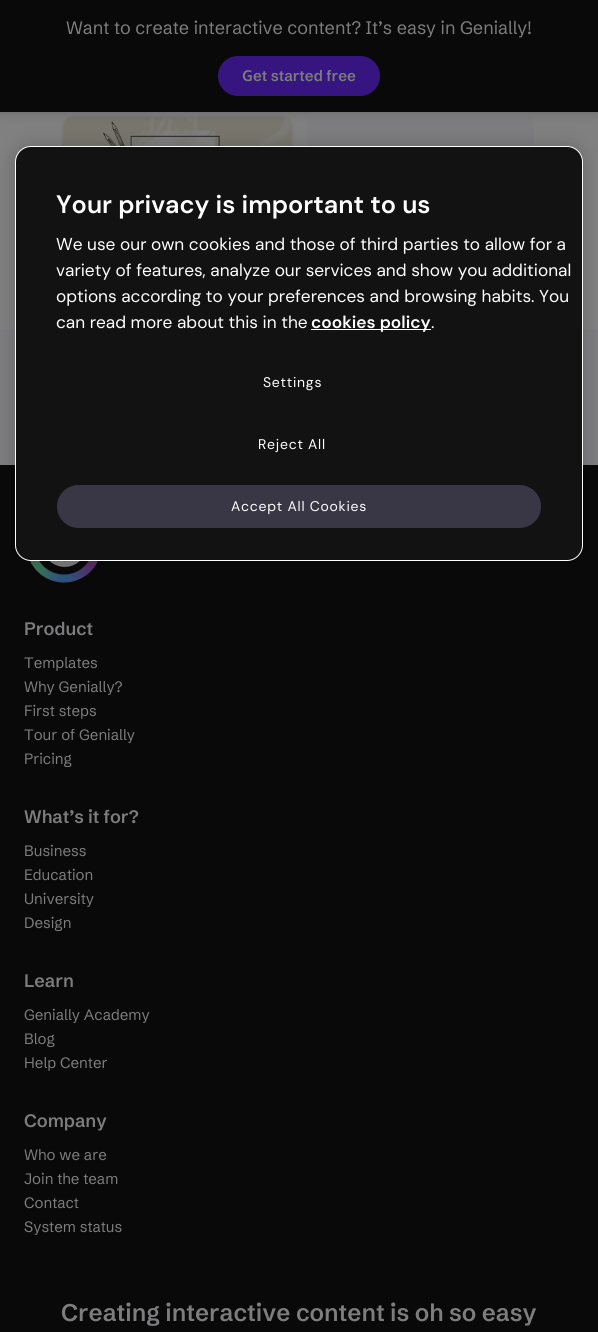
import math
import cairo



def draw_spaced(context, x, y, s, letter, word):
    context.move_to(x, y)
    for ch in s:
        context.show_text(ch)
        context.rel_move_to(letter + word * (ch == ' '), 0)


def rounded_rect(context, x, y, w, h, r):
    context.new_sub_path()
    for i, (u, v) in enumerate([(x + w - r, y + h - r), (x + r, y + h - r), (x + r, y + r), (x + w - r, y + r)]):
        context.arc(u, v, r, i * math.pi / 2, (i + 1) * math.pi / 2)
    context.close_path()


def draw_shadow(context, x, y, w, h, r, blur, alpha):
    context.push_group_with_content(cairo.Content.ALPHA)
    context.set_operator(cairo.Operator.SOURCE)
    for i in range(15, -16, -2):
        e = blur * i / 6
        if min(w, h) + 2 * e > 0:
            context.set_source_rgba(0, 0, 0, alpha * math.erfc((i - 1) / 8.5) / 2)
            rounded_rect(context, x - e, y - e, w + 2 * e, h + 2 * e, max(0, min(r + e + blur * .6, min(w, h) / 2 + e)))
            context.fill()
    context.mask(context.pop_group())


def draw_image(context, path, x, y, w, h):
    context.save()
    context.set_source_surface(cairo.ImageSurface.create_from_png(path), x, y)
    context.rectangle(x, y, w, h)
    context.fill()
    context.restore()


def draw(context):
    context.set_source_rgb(128 / 255, 128 / 255, 128 / 255)
    context.paint()
    context.set_source_rgb(9 / 255, 9 / 255, 9 / 255)
    draw_shadow(context, 64, 118, 227, 128, 8, 2, 0.2)
    draw_image(context, "images/1.png", 64, 117, 227, 29)
    context.set_source_rgb(125 / 255, 124 / 255, 126 / 255)
    rounded_rect(context, 307, 117, 227, 156, 8)
    context.fill()
    context.set_source_rgb(9 / 255, 9 / 255, 9 / 255)
    draw_shadow(context, 0, -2, 598, 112, 0, 6.5, 0.3)
    context.set_source_rgb(9 / 255, 9 / 255, 9 / 255)
    context.rectangle(0, 0, 598, 112)
    context.fill()
    context.set_source_rgb(54 / 255, 21 / 255, 128 / 255)
    rounded_rect(context, 218, 56, 162, 40, 20)
    context.fill()
    context.set_source_rgb(125 / 255, 124 / 255, 126 / 255)
    context.rectangle(0, 329, 598, 136)
    context.fill()
    context.set_source_rgb(9 / 255, 9 / 255, 9 / 255)
    context.rectangle(0, 465, 598, 867)
    context.fill()
    draw_image(context, "images/2.png", 29, 560, 69, 23)
    context.set_source_rgb(0, 0, 0)
    draw_shadow(context, 15, 146, 568, 415, 16, 9, 0.2)
    context.set_source_rgb(18 / 255, 18 / 255, 18 / 255)
    rounded_rect(context, 15.5, 146.5, 567, 414, 15.5)
    context.fill_preserve()
    context.set_source_rgb(1, 1, 1)
    context.set_line_width(1)
    context.stroke()
    context.rectangle(311, 329, 120, 1)
    context.fill()
    context.set_source_rgb(57 / 255, 54 / 255, 69 / 255)
    rounded_rect(context, 56.5, 484.5, 485, 44, 22)
    context.fill_preserve()
    context.set_source_rgb(18 / 255, 18 / 255, 18 / 255)
    context.stroke()
    context.select_font_face("Schibsted Grotesk")
    context.set_font_size(18)
    context.set_source_rgb(125 / 255, 124 / 255, 126 / 255)
    context.move_to(66, 34)
    context.show_text("Want to create interactive content? It’s easy in Genially!")
    context.select_font_face("Noto Sans SemiBold")
    context.set_font_size(15)
    context.move_to(242, 81)
    context.show_text("G")
    context.select_font_face("Schibsted Grotesk SemiBold")
    context.move_to(253, 81)
    context.show_text("et started free")
    context.set_font_size(18)
    context.move_to(24, 635)
    context.show_text("Product")
    context.select_font_face("Schibsted Grotesk")
    context.set_font_size(15)
    context.move_to(24, 668)
    context.show_text("Templates")
    context.move_to(24, 692)
    context.show_text("Why Genially?")
    context.move_to(24, 716)
    context.show_text("First steps")
    context.move_to(24, 740)
    context.show_text("Tour of Genially")
    context.move_to(24, 764)
    context.show_text("Pricing")
    context.select_font_face("Schibsted Grotesk SemiBold")
    context.set_font_size(18)
    context.move_to(24, 823)
    context.show_text("What’s it for?")
    context.select_font_face("Schibsted Grotesk")
    context.set_font_size(15)
    context.move_to(24, 856)
    context.show_text("Business")
    context.move_to(24, 880)
    context.show_text("Education")
    context.move_to(24, 904)
    context.show_text("University")
    context.move_to(24, 928)
    context.show_text("Design")
    context.select_font_face("Schibsted Grotesk SemiBold")
    context.set_font_size(18)
    context.move_to(24, 987)
    context.show_text("Learn")
    context.select_font_face("Schibsted Grotesk")
    context.set_font_size(15)
    context.move_to(24, 1020)
    context.show_text("Genially Academy")
    context.move_to(24, 1044)
    context.show_text("Blog")
    context.move_to(24, 1068)
    context.show_text("Help Center")
    context.select_font_face("Schibsted Grotesk SemiBold")
    context.set_font_size(18)
    context.move_to(24, 1127)
    context.show_text("Company")
    context.select_font_face("Schibsted Grotesk")
    context.set_font_size(15)
    context.move_to(24, 1160)
    context.show_text("Who we are")
    context.move_to(24, 1184)
    context.show_text("Join the team")
    context.move_to(24, 1208)
    context.show_text("Contact")
    context.move_to(24, 1232)
    context.show_text("System status")
    context.select_font_face("Schibsted Grotesk SemiBold")
    context.set_font_size(24)
    context.move_to(61, 1321)
    context.show_text("Creating interactive content is oh so easy")
    context.select_font_face("DM Sans SemiBold")
    context.set_font_size(25.25)
    context.set_source_rgb(1, 1, 1)
    context.move_to(56, 213)
    context.show_text("Your privacy is important to us")
    context.select_font_face("DM Sans")
    context.set_font_size(17.25)
    context.move_to(56, 250)
    context.show_text("We use our own cookies and those of third parties to allow for a")
    context.move_to(56, 276)
    context.show_text("variety of features, analyze our services and show you additional")
    context.move_to(56, 302)
    context.show_text("options according to your preferences and browsing habits. You")
    context.move_to(56, 328)
    context.show_text("can read more about this in the")
    context.select_font_face("DM Sans SemiBold")
    context.move_to(311, 328)
    context.show_text("cookies policy")
    context.select_font_face("DM Sans")
    context.move_to(431, 328)
    context.show_text(".")
    context.set_font_size(14)
    draw_spaced(context, 263, 387, "Settings", 0.75, 0)
    draw_spaced(context, 258, 449, "Reject All", 0.75, 0)
    draw_spaced(context, 231, 511, "Accept All Cookies", 0.75, 0)


surface = cairo.ImageSurface(cairo.Format.RGB24, 598, 1332)
context = cairo.Context(surface)
options = cairo.FontOptions()
options.set_hint_metrics(cairo.HintMetrics.OFF)
options.set_hint_style(cairo.HintStyle.NONE)
context.set_font_options(options)
context.set_miter_limit(4)
draw(context)
surface.write_to_png("out.png")
